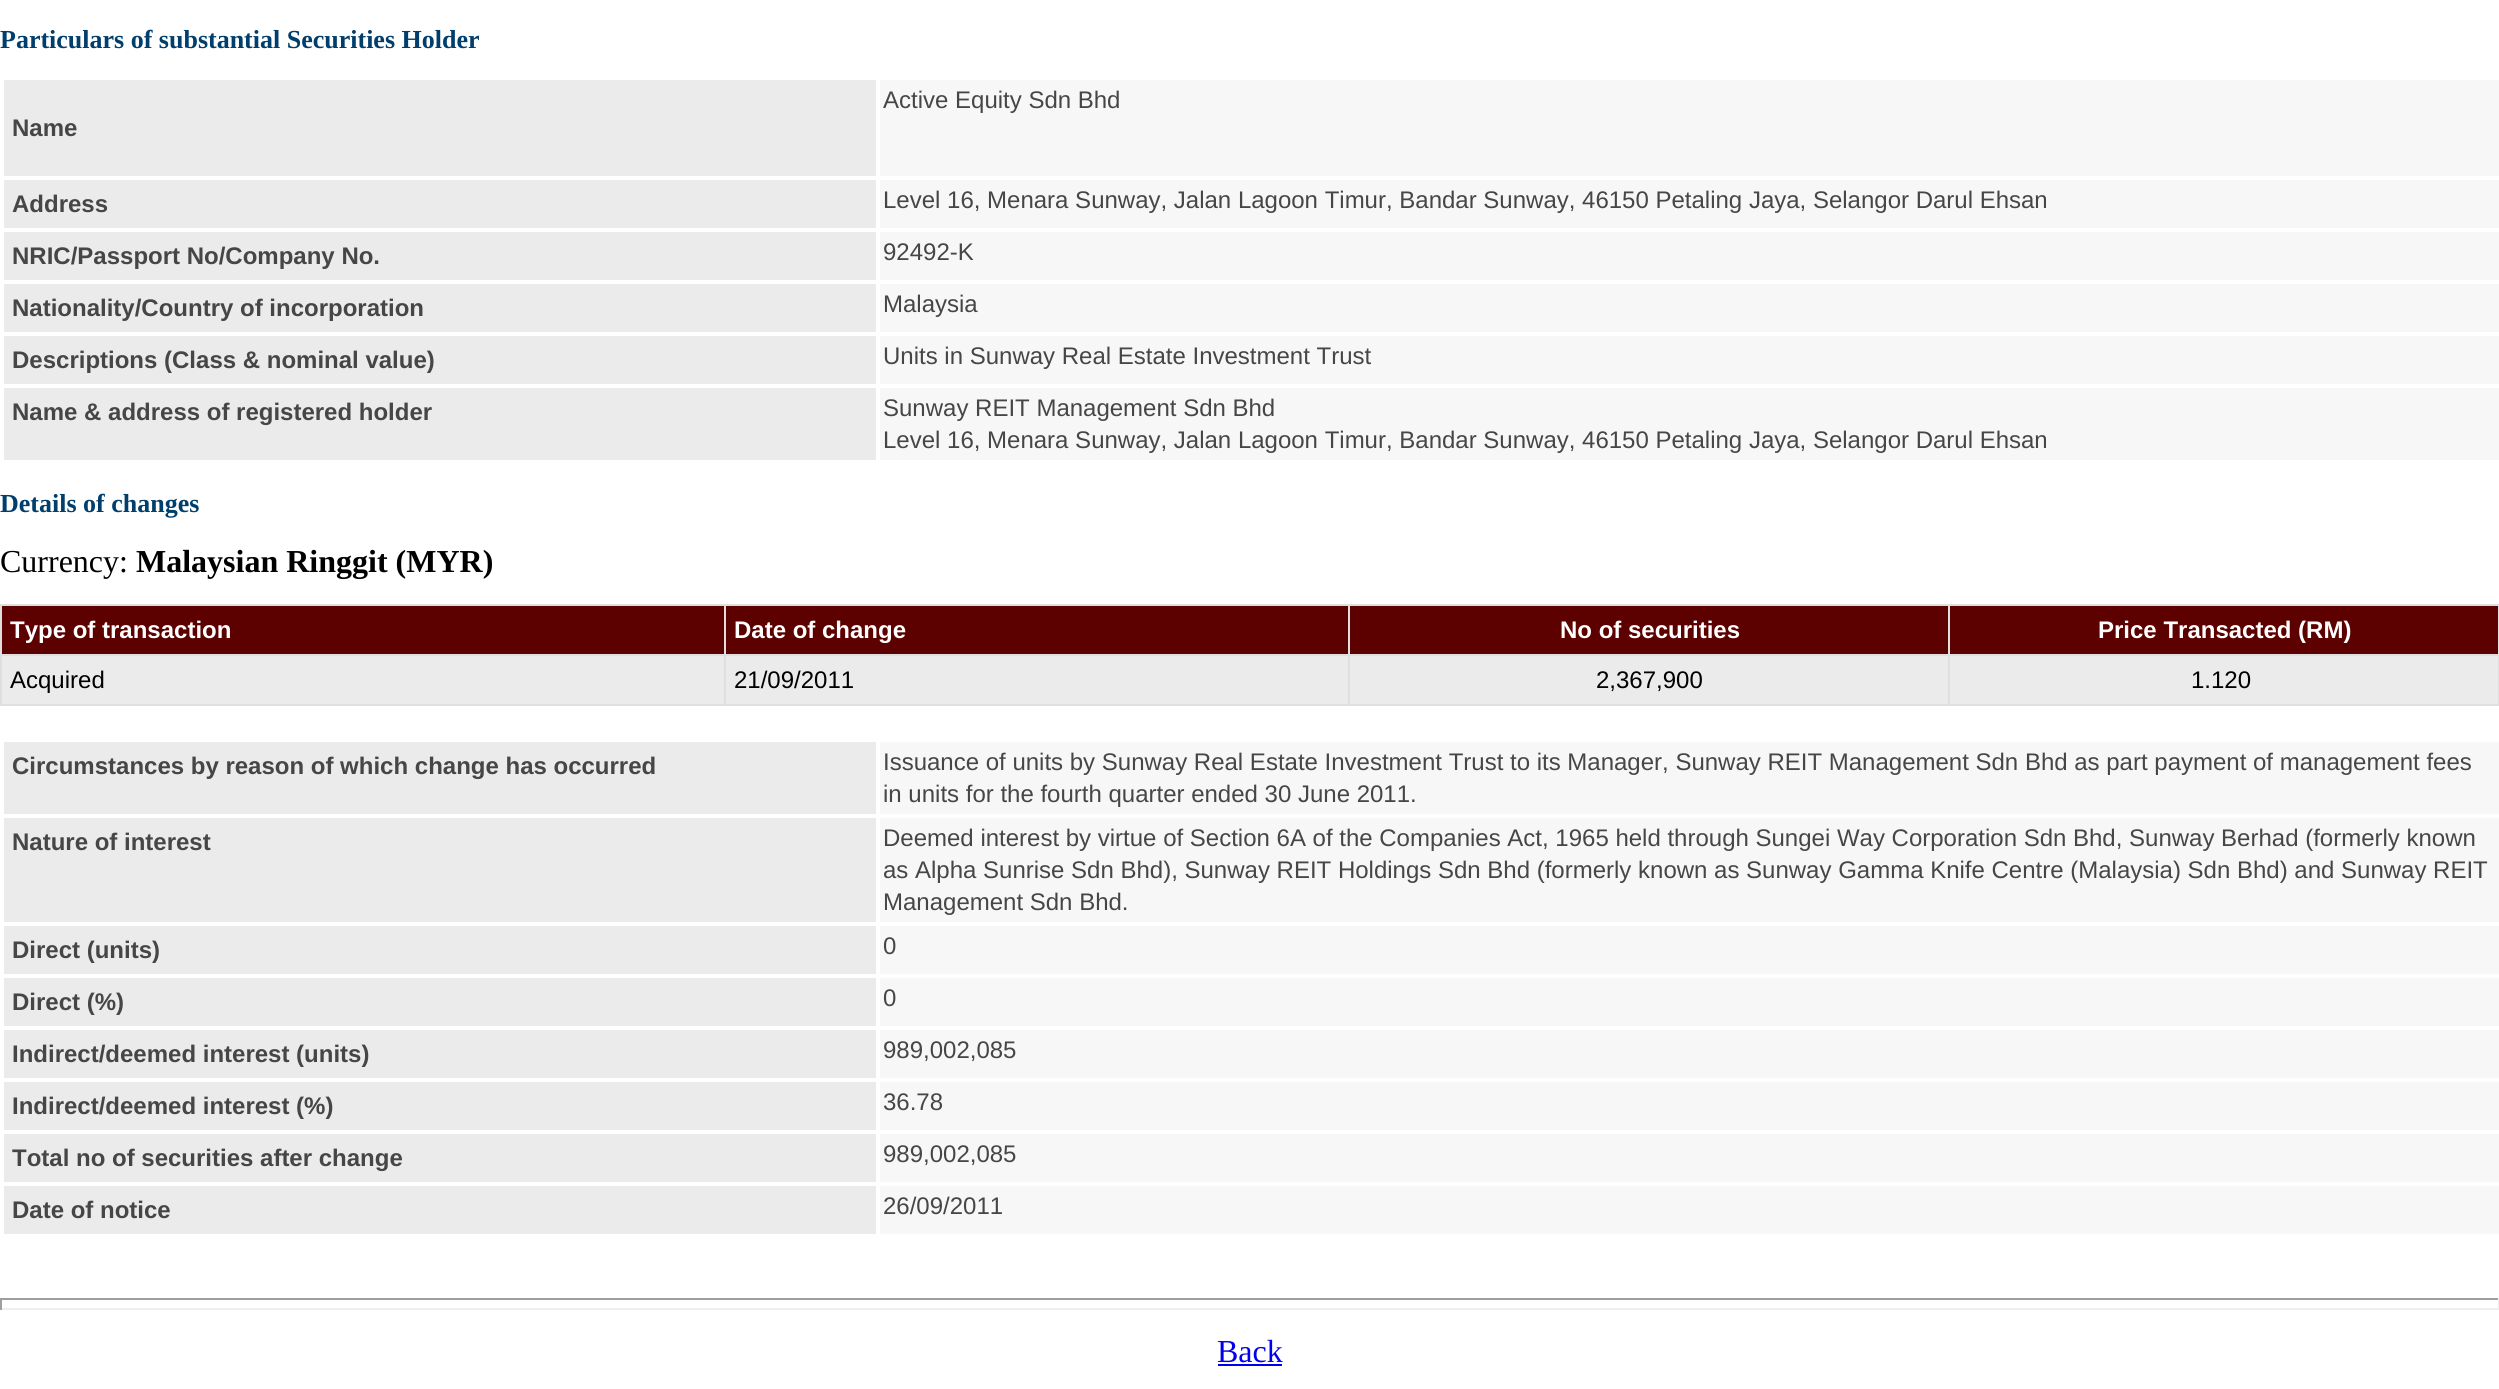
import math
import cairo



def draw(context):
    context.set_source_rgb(1, 1, 1)
    context.paint()
    context.set_source_rgb(247 / 255, 247 / 255, 247 / 255)
    context.rectangle(880, 80, 1619, 96)
    context.fill()
    context.set_source_rgb(235 / 255, 235 / 255, 235 / 255)
    context.rectangle(4, 80, 872, 96)
    context.fill()
    context.rectangle(4, 180, 872, 48)
    context.fill()
    context.set_source_rgb(247 / 255, 247 / 255, 247 / 255)
    context.rectangle(880, 180, 1619, 48)
    context.fill()
    context.set_source_rgb(235 / 255, 235 / 255, 235 / 255)
    context.rectangle(4, 232, 872, 48)
    context.fill()
    context.set_source_rgb(247 / 255, 247 / 255, 247 / 255)
    context.rectangle(880, 232, 1619, 48)
    context.fill()
    context.set_source_rgb(235 / 255, 235 / 255, 235 / 255)
    context.rectangle(4, 284, 872, 48)
    context.fill()
    context.set_source_rgb(247 / 255, 247 / 255, 247 / 255)
    context.rectangle(880, 284, 1619, 48)
    context.fill()
    context.set_source_rgb(235 / 255, 235 / 255, 235 / 255)
    context.rectangle(4, 336, 872, 48)
    context.fill()
    context.set_source_rgb(247 / 255, 247 / 255, 247 / 255)
    context.rectangle(880, 336, 1619, 48)
    context.fill()
    context.set_source_rgb(235 / 255, 235 / 255, 235 / 255)
    context.rectangle(4, 388, 872, 72)
    context.fill()
    context.set_source_rgb(247 / 255, 247 / 255, 247 / 255)
    context.rectangle(880, 388, 1619, 72)
    context.fill()
    context.set_source_rgb(223 / 255, 223 / 255, 223 / 255)
    context.rectangle(0, 604, 2498, 100)
    context.fill()
    context.rectangle(2498, 604, 1, 102)
    context.fill()
    context.rectangle(0, 704, 2499, 2)
    context.fill()
    context.set_source_rgb(92 / 255, 0, 0)
    context.rectangle(2, 606, 722, 48)
    context.fill()
    context.rectangle(726, 606, 622, 48)
    context.fill()
    context.rectangle(1350, 606, 598, 48)
    context.fill()
    context.rectangle(1950, 606, 548, 48)
    context.fill()
    context.set_source_rgb(235 / 255, 235 / 255, 235 / 255)
    context.rectangle(2, 656, 722, 48)
    context.fill()
    context.rectangle(726, 656, 622, 48)
    context.fill()
    context.rectangle(1350, 656, 598, 48)
    context.fill()
    context.rectangle(1950, 656, 548, 48)
    context.fill()
    context.rectangle(4, 742, 872, 72)
    context.fill()
    context.set_source_rgb(247 / 255, 247 / 255, 247 / 255)
    context.rectangle(880, 742, 1619, 72)
    context.fill()
    context.set_source_rgb(235 / 255, 235 / 255, 235 / 255)
    context.rectangle(4, 818, 872, 104)
    context.fill()
    context.set_source_rgb(247 / 255, 247 / 255, 247 / 255)
    context.rectangle(880, 818, 1619, 104)
    context.fill()
    context.set_source_rgb(235 / 255, 235 / 255, 235 / 255)
    context.rectangle(4, 926, 872, 48)
    context.fill()
    context.set_source_rgb(247 / 255, 247 / 255, 247 / 255)
    context.rectangle(880, 926, 1619, 48)
    context.fill()
    context.set_source_rgb(235 / 255, 235 / 255, 235 / 255)
    context.rectangle(4, 978, 872, 48)
    context.fill()
    context.set_source_rgb(247 / 255, 247 / 255, 247 / 255)
    context.rectangle(880, 978, 1619, 48)
    context.fill()
    context.set_source_rgb(235 / 255, 235 / 255, 235 / 255)
    context.rectangle(4, 1030, 872, 48)
    context.fill()
    context.set_source_rgb(247 / 255, 247 / 255, 247 / 255)
    context.rectangle(880, 1030, 1619, 48)
    context.fill()
    context.set_source_rgb(235 / 255, 235 / 255, 235 / 255)
    context.rectangle(4, 1082, 872, 48)
    context.fill()
    context.set_source_rgb(247 / 255, 247 / 255, 247 / 255)
    context.rectangle(880, 1082, 1619, 48)
    context.fill()
    context.set_source_rgb(235 / 255, 235 / 255, 235 / 255)
    context.rectangle(4, 1134, 872, 48)
    context.fill()
    context.set_source_rgb(247 / 255, 247 / 255, 247 / 255)
    context.rectangle(880, 1134, 1619, 48)
    context.fill()
    context.set_source_rgb(235 / 255, 235 / 255, 235 / 255)
    context.rectangle(4, 1186, 872, 48)
    context.fill()
    context.set_source_rgb(247 / 255, 247 / 255, 247 / 255)
    context.rectangle(880, 1186, 1619, 48)
    context.fill()
    context.set_source_rgb(159 / 255, 159 / 255, 159 / 255)
    context.rectangle(0, 1298, 2499, 2)
    context.fill()
    context.set_source_rgb(238 / 255, 238 / 255, 238 / 255)
    context.rectangle(2498, 1298, 1, 12)
    context.fill()
    context.rectangle(0, 1308, 2499, 2)
    context.fill()
    context.set_source_rgb(159 / 255, 159 / 255, 159 / 255)
    context.rectangle(0, 1298, 2, 12)
    context.fill()
    context.set_source_rgb(0, 0, 238 / 255)
    context.rectangle(1218, 1364, 64, 2)
    context.fill()
    context.select_font_face("Liberation Serif", cairo.FontSlant.NORMAL, cairo.FontWeight.BOLD)
    context.set_font_size(26)
    context.set_source_rgb(0, 63 / 255, 109 / 255)
    context.move_to(0, 48)
    context.show_text("Particulars of substantial Securities Holder")
    context.select_font_face("Liberation Sans")
    context.set_font_size(24)
    context.set_source_rgb(70 / 255, 70 / 255, 70 / 255)
    context.move_to(883, 108)
    context.show_text("Active Equity Sdn Bhd")
    context.select_font_face("Liberation Sans", cairo.FontSlant.NORMAL, cairo.FontWeight.BOLD)
    context.move_to(12, 136)
    context.show_text("Name")
    context.move_to(12, 212)
    context.show_text("Address")
    context.select_font_face("Liberation Sans")
    context.move_to(883, 208)
    context.show_text("Level 16, Menara Sunway, Jalan Lagoon Timur, Bandar Sunway, 46150 Petaling Jaya, Selangor Darul Ehsan")
    context.select_font_face("Liberation Sans", cairo.FontSlant.NORMAL, cairo.FontWeight.BOLD)
    context.move_to(12, 264)
    context.show_text("NRIC/Passport No/Company No.")
    context.select_font_face("Liberation Sans")
    context.move_to(883, 260)
    context.show_text("92492-K")
    context.select_font_face("Liberation Sans", cairo.FontSlant.NORMAL, cairo.FontWeight.BOLD)
    context.move_to(12, 316)
    context.show_text("Nationality/Country of incorporation")
    context.select_font_face("Liberation Sans")
    context.move_to(883, 312)
    context.show_text("Malaysia")
    context.select_font_face("Liberation Sans", cairo.FontSlant.NORMAL, cairo.FontWeight.BOLD)
    context.move_to(12, 368)
    context.show_text("Descriptions (Class & nominal value)")
    context.select_font_face("Liberation Sans")
    context.move_to(883, 364)
    context.show_text("Units in Sunway Real Estate Investment Trust")
    context.select_font_face("Liberation Sans", cairo.FontSlant.NORMAL, cairo.FontWeight.BOLD)
    context.move_to(12, 420)
    context.show_text("Name & address of registered holder")
    context.select_font_face("Liberation Sans")
    context.move_to(883, 416)
    context.show_text("Sunway REIT Management Sdn Bhd")
    context.move_to(883, 448)
    context.show_text("Level 16, Menara Sunway, Jalan Lagoon Timur, Bandar Sunway, 46150 Petaling Jaya, Selangor Darul Ehsan")
    context.select_font_face("Liberation Serif", cairo.FontSlant.NORMAL, cairo.FontWeight.BOLD)
    context.set_font_size(26)
    context.set_source_rgb(0, 63 / 255, 109 / 255)
    context.move_to(0, 512)
    context.show_text("Details of changes")
    context.select_font_face("Liberation Serif")
    context.set_font_size(32)
    context.set_source_rgb(0, 0, 0)
    context.move_to(0, 572)
    context.show_text("Currency:")
    context.select_font_face("Liberation Serif", cairo.FontSlant.NORMAL, cairo.FontWeight.BOLD)
    context.move_to(136, 572)
    context.show_text("Malaysian Ringgit (MYR)")
    context.select_font_face("Liberation Sans", cairo.FontSlant.NORMAL, cairo.FontWeight.BOLD)
    context.set_font_size(24)
    context.set_source_rgb(1, 1, 1)
    context.move_to(10, 638)
    context.show_text("Type of transaction")
    context.move_to(734, 638)
    context.show_text("Date of change")
    context.move_to(1560, 638)
    context.show_text("No of securities")
    context.move_to(2098, 638)
    context.show_text("Price Transacted (RM)")
    context.select_font_face("Liberation Sans")
    context.set_source_rgb(0, 0, 0)
    context.move_to(10, 688)
    context.show_text("Acquired")
    context.move_to(734, 688)
    context.show_text("21/09/2011")
    context.move_to(1596, 688)
    context.show_text("2,367,900")
    context.move_to(2191, 688)
    context.show_text("1.120")
    context.select_font_face("Liberation Sans", cairo.FontSlant.NORMAL, cairo.FontWeight.BOLD)
    context.set_source_rgb(70 / 255, 70 / 255, 70 / 255)
    context.move_to(12, 774)
    context.show_text("Circumstances by reason of which change has occurred")
    context.select_font_face("Liberation Sans")
    context.move_to(883, 770)
    context.show_text("Issuance of units by Sunway Real Estate Investment Trust to its Manager, Sunway REIT Management Sdn Bhd as part payment of management fees")
    context.move_to(883, 802)
    context.show_text("in units for the fourth quarter ended 30 June 2011.")
    context.select_font_face("Liberation Sans", cairo.FontSlant.NORMAL, cairo.FontWeight.BOLD)
    context.move_to(12, 850)
    context.show_text("Nature of interest")
    context.select_font_face("Liberation Sans")
    context.move_to(883, 846)
    context.show_text("Deemed interest by virtue of Section 6A of the Companies Act, 1965 held through Sungei Way Corporation Sdn Bhd, Sunway Berhad (formerly known")
    context.move_to(883, 878)
    context.show_text("as Alpha Sunrise Sdn Bhd), Sunway REIT Holdings Sdn Bhd (formerly known as Sunway Gamma Knife Centre (Malaysia) Sdn Bhd) and Sunway REIT")
    context.move_to(883, 910)
    context.show_text("Management Sdn Bhd.")
    context.select_font_face("Liberation Sans", cairo.FontSlant.NORMAL, cairo.FontWeight.BOLD)
    context.move_to(12, 958)
    context.show_text("Direct (units)")
    context.select_font_face("Liberation Sans")
    context.move_to(883, 954)
    context.show_text("0")
    context.select_font_face("Liberation Sans", cairo.FontSlant.NORMAL, cairo.FontWeight.BOLD)
    context.move_to(12, 1010)
    context.show_text("Direct (%)")
    context.select_font_face("Liberation Sans")
    context.move_to(883, 1006)
    context.show_text("0")
    context.select_font_face("Liberation Sans", cairo.FontSlant.NORMAL, cairo.FontWeight.BOLD)
    context.move_to(12, 1062)
    context.show_text("Indirect/deemed interest (units)")
    context.select_font_face("Liberation Sans")
    context.move_to(883, 1058)
    context.show_text("989,002,085")
    context.select_font_face("Liberation Sans", cairo.FontSlant.NORMAL, cairo.FontWeight.BOLD)
    context.move_to(12, 1114)
    context.show_text("Indirect/deemed interest (%)")
    context.select_font_face("Liberation Sans")
    context.move_to(883, 1110)
    context.show_text("36.78")
    context.select_font_face("Liberation Sans", cairo.FontSlant.NORMAL, cairo.FontWeight.BOLD)
    context.move_to(12, 1166)
    context.show_text("Total no of securities after change")
    context.select_font_face("Liberation Sans")
    context.move_to(883, 1162)
    context.show_text("989,002,085")
    context.select_font_face("Liberation Sans", cairo.FontSlant.NORMAL, cairo.FontWeight.BOLD)
    context.move_to(12, 1218)
    context.show_text("Date of notice")
    context.select_font_face("Liberation Sans")
    context.move_to(883, 1214)
    context.show_text("26/09/2011")
    context.select_font_face("Liberation Serif")
    context.set_font_size(32)
    context.set_source_rgb(0, 0, 238 / 255)
    context.move_to(1217, 1362)
    context.show_text("Back")


surface = cairo.ImageSurface(cairo.Format.RGB24, 2499, 1389)
context = cairo.Context(surface)
options = cairo.FontOptions()
options.set_hint_metrics(cairo.HintMetrics.OFF)
options.set_hint_style(cairo.HintStyle.NONE)
context.set_font_options(options)
context.set_miter_limit(4)
draw(context)
surface.write_to_png("out.png")
